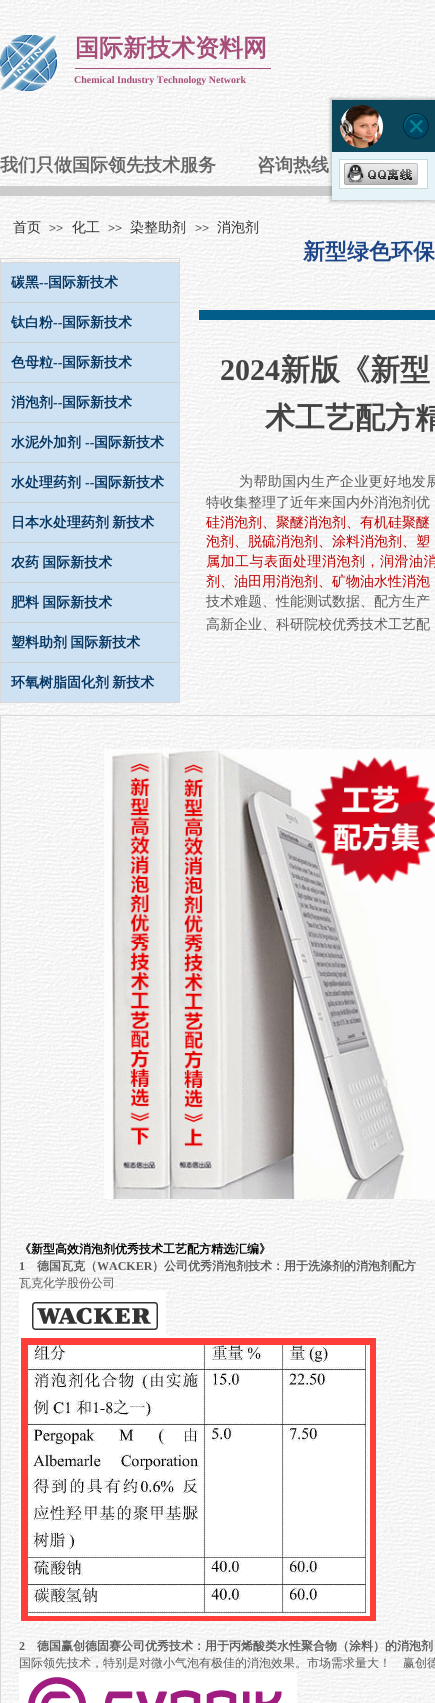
import math
import cairo



def draw_spaced(context, x, y, s, letter, word):
    context.move_to(x, y)
    for ch in s:
        context.show_text(ch)
        context.rel_move_to(letter + word * (ch == ' '), 0)


def rounded_rect(context, x, y, w, h, r):
    context.new_sub_path()
    for i, (u, v) in enumerate([(x + w - r, y + h - r), (x + r, y + h - r), (x + r, y + r), (x + w - r, y + r)]):
        context.arc(u, v, r, i * math.pi / 2, (i + 1) * math.pi / 2)
    context.close_path()


def draw_shadow(context, x, y, w, h, r, blur, alpha):
    context.push_group_with_content(cairo.Content.ALPHA)
    context.set_operator(cairo.Operator.SOURCE)
    for i in range(15, -16, -2):
        e = blur * i / 6
        if min(w, h) + 2 * e > 0:
            context.set_source_rgba(0, 0, 0, alpha * math.erfc((i - 1) / 8.5) / 2)
            rounded_rect(context, x - e, y - e, w + 2 * e, h + 2 * e, max(0, min(r + e + blur * .6, min(w, h) / 2 + e)))
            context.fill()
    context.mask(context.pop_group())


def draw_image(context, path, x, y, w, h):
    context.save()
    context.set_source_surface(cairo.ImageSurface.create_from_png(path), x, y)
    context.rectangle(x, y, w, h)
    context.fill()
    context.restore()


def draw(context):
    context.set_source_rgb(1, 1, 1)
    context.paint()
    draw_image(context, "images/1.png", 0, 0, 435, 1703)
    draw_image(context, "images/2.png", 0, 35, 57, 56)
    context.set_source_rgb(166 / 255, 77 / 255, 121 / 255)
    context.rectangle(75, 68, 196, 1)
    context.fill()
    context.set_source_rgb(204 / 255, 204 / 255, 204 / 255)
    context.rectangle(0, 186, 332, 10)
    context.fill()
    context.rectangle(0.5, 258.5, 179, 400)
    context.set_source_rgb(217 / 255, 217 / 255, 217 / 255)
    context.set_line_width(1)
    context.stroke()
    context.rectangle(0.5, 262.5, 179, 440)
    context.stroke()
    context.set_source_rgb(207 / 255, 226 / 255, 243 / 255)
    context.rectangle(1, 263, 178, 439)
    context.fill()
    context.set_source_rgb(208 / 255, 208 / 255, 208 / 255)
    context.rectangle(1, 302, 178, 1)
    context.fill()
    context.rectangle(1, 342, 178, 1)
    context.fill()
    context.rectangle(1, 382, 178, 1)
    context.fill()
    context.rectangle(1, 422, 178, 1)
    context.fill()
    context.rectangle(1, 462, 178, 1)
    context.fill()
    context.rectangle(1, 502, 178, 1)
    context.fill()
    context.rectangle(1, 542, 178, 1)
    context.fill()
    context.rectangle(1, 582, 178, 1)
    context.fill()
    context.rectangle(1, 622, 178, 1)
    context.fill()
    context.rectangle(1, 662, 178, 1)
    context.fill()
    context.set_source_rgb(1 / 255, 93 / 255, 138 / 255)
    context.rectangle(199, 310, 236, 10)
    context.fill()
    context.rectangle(0.5, 715.5, 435, 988)
    context.set_source_rgb(217 / 255, 217 / 255, 217 / 255)
    context.stroke()
    draw_image(context, "images/3.png", 104, 749, 331, 450)
    draw_image(context, "images/4.png", 19, 1291, 147, 45)
    draw_image(context, "images/5.png", 19, 1336, 357, 285)
    draw_image(context, "images/6.png", 19, 1672, 278, 31)
    context.set_source_rgb(0, 0, 0)
    draw_shadow(context, 330, 98, 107, 104, 0, 1.5, 0.2)
    context.set_source_rgb(11 / 255, 70 / 255, 90 / 255)
    context.rectangle(332, 100, 103, 52)
    context.fill()
    draw_image(context, "images/7.png", 340, 105, 43, 43)
    draw_image(context, "images/8.png", 403, 113, 26, 26)
    context.set_source_rgb(231 / 255, 244 / 255, 247 / 255)
    context.rectangle(332, 152, 103, 48)
    context.fill()
    context.set_source_rgb(1, 1, 1)
    context.rectangle(339.5, 159.5, 88, 29)
    context.fill_preserve()
    context.set_source_rgb(195 / 255, 218 / 255, 223 / 255)
    context.stroke()
    draw_image(context, "images/9.png", 344, 163, 74, 22)
    context.select_font_face("WenQuanYi Zen Hei", cairo.FontSlant.NORMAL, cairo.FontWeight.BOLD)
    context.set_font_size(24)
    context.set_source_rgb(166 / 255, 77 / 255, 121 / 255)
    context.move_to(75, 56)
    context.show_text("国际新技术资料网")
    context.select_font_face("Liberation Serif", cairo.FontSlant.NORMAL, cairo.FontWeight.BOLD)
    context.set_font_size(10)
    context.move_to(74, 83)
    context.show_text("Chemical Industry Technology Network")
    context.select_font_face("WenQuanYi Zen Hei", cairo.FontSlant.NORMAL, cairo.FontWeight.BOLD)
    context.set_font_size(18)
    context.set_source_rgb(102 / 255, 102 / 255, 102 / 255)
    context.move_to(0, 171)
    context.show_text("我们只做国际领先技术服务")
    context.move_to(257, 171)
    context.show_text("咨询热线")
    context.select_font_face("WenQuanYi Zen Hei Medium")
    context.set_font_size(14)
    context.set_source_rgb(51 / 255, 51 / 255, 51 / 255)
    context.move_to(13, 232)
    context.show_text("首页")
    context.select_font_face("Liberation Sans")
    context.set_font_size(12)
    context.set_source_rgb(90 / 255, 90 / 255, 90 / 255)
    context.move_to(49, 232)
    context.show_text(">>")
    context.select_font_face("WenQuanYi Zen Hei Medium")
    context.set_font_size(14)
    context.set_source_rgb(51 / 255, 51 / 255, 51 / 255)
    context.move_to(72, 232)
    context.show_text("化工")
    context.select_font_face("Liberation Sans")
    context.set_font_size(12)
    context.set_source_rgb(90 / 255, 90 / 255, 90 / 255)
    context.move_to(108, 232)
    context.show_text(">>")
    context.select_font_face("WenQuanYi Zen Hei Medium")
    context.set_font_size(14)
    context.set_source_rgb(51 / 255, 51 / 255, 51 / 255)
    context.move_to(130, 232)
    context.show_text("染整助剂")
    context.select_font_face("Liberation Sans")
    context.set_font_size(12)
    context.set_source_rgb(90 / 255, 90 / 255, 90 / 255)
    context.move_to(195, 232)
    context.show_text(">>")
    context.select_font_face("WenQuanYi Zen Hei Medium")
    context.set_font_size(14)
    context.set_source_rgb(51 / 255, 51 / 255, 51 / 255)
    context.move_to(217, 232)
    context.show_text("消泡剂")
    context.select_font_face("WenQuanYi Zen Hei", cairo.FontSlant.NORMAL, cairo.FontWeight.BOLD)
    context.set_font_size(22)
    context.set_source_rgb(28 / 255, 69 / 255, 135 / 255)
    context.move_to(303, 259)
    context.show_text("新型绿色环保")
    context.set_font_size(14)
    context.set_source_rgb(7 / 255, 55 / 255, 99 / 255)
    context.move_to(11, 287)
    context.show_text("碳黑")
    context.select_font_face("Liberation Serif", cairo.FontSlant.NORMAL, cairo.FontWeight.BOLD)
    context.move_to(39, 287)
    context.show_text("--")
    context.select_font_face("WenQuanYi Zen Hei", cairo.FontSlant.NORMAL, cairo.FontWeight.BOLD)
    context.move_to(48, 287)
    context.show_text("国际新技术")
    context.move_to(11, 327)
    context.show_text("钛白粉")
    context.select_font_face("Liberation Serif", cairo.FontSlant.NORMAL, cairo.FontWeight.BOLD)
    context.move_to(53, 327)
    context.show_text("--")
    context.select_font_face("WenQuanYi Zen Hei", cairo.FontSlant.NORMAL, cairo.FontWeight.BOLD)
    context.move_to(62, 327)
    context.show_text("国际新技术")
    context.move_to(11, 367)
    context.show_text("色母粒")
    context.select_font_face("Liberation Serif", cairo.FontSlant.NORMAL, cairo.FontWeight.BOLD)
    context.move_to(53, 367)
    context.show_text("--")
    context.select_font_face("WenQuanYi Zen Hei", cairo.FontSlant.NORMAL, cairo.FontWeight.BOLD)
    context.move_to(62, 367)
    context.show_text("国际新技术")
    context.move_to(11, 407)
    context.show_text("消泡剂")
    context.select_font_face("Liberation Serif", cairo.FontSlant.NORMAL, cairo.FontWeight.BOLD)
    context.move_to(53, 407)
    context.show_text("--")
    context.select_font_face("WenQuanYi Zen Hei", cairo.FontSlant.NORMAL, cairo.FontWeight.BOLD)
    context.move_to(62, 407)
    context.show_text("国际新技术")
    context.move_to(11, 447)
    context.show_text("水泥外加剂")
    context.select_font_face("Liberation Serif", cairo.FontSlant.NORMAL, cairo.FontWeight.BOLD)
    context.move_to(85, 447)
    context.show_text("--")
    context.select_font_face("WenQuanYi Zen Hei", cairo.FontSlant.NORMAL, cairo.FontWeight.BOLD)
    context.move_to(94, 447)
    context.show_text("国际新技术")
    context.move_to(11, 487)
    context.show_text("水处理药剂")
    context.select_font_face("Liberation Serif", cairo.FontSlant.NORMAL, cairo.FontWeight.BOLD)
    context.move_to(85, 487)
    context.show_text("--")
    context.select_font_face("WenQuanYi Zen Hei", cairo.FontSlant.NORMAL, cairo.FontWeight.BOLD)
    context.move_to(94, 487)
    context.show_text("国际新技术")
    draw_spaced(context, 11, 527, "日本水处理药剂 新技术", 0, -1)
    draw_spaced(context, 11, 567, "农药 国际新技术", 0, -1)
    draw_spaced(context, 11, 607, "肥料 国际新技术", 0, -1)
    draw_spaced(context, 11, 647, "塑料助剂 国际新技术", 0, -1)
    draw_spaced(context, 11, 687, "环氧树脂固化剂 新技术", 0, -1)
    context.select_font_face("Liberation Serif", cairo.FontSlant.NORMAL, cairo.FontWeight.BOLD)
    context.set_font_size(30)
    context.set_source_rgb(67 / 255, 67 / 255, 67 / 255)
    context.move_to(220, 380)
    context.show_text("2024")
    context.select_font_face("WenQuanYi Zen Hei", cairo.FontSlant.NORMAL, cairo.FontWeight.BOLD)
    context.move_to(280, 380)
    context.show_text("新版《新型")
    context.move_to(265, 428)
    context.show_text("术工艺配方精")
    context.select_font_face("WenQuanYi Zen Hei Medium")
    context.set_font_size(14)
    context.set_source_rgb(90 / 255, 90 / 255, 90 / 255)
    draw_spaced(context, 239, 486, "为帮助国内生产企业更好地发展", 0.4, 0)
    context.move_to(206, 507)
    context.show_text("特收集整理了近年来国内外消泡剂优")
    context.set_source_rgb(192 / 255, 0, 0)
    context.move_to(206, 527)
    context.show_text("硅消泡剂、聚醚消泡剂、有机硅聚醚")
    context.move_to(206, 546)
    context.show_text("泡剂、脱硫消泡剂、涂料消泡剂、塑")
    draw_spaced(context, 206, 566, "属加工与表面处理消泡剂，润滑油消", 0.5, 0)
    context.move_to(206, 586)
    context.show_text("剂、油田用消泡剂、矿物油水性消泡")
    context.set_source_rgb(90 / 255, 90 / 255, 90 / 255)
    context.move_to(206, 606)
    context.show_text("技术难题、性能测试数据、配方生产")
    context.move_to(206, 629)
    context.show_text("高新企业、科研院校优秀技术工艺配")
    context.select_font_face("WenQuanYi Zen Hei", cairo.FontSlant.NORMAL, cairo.FontWeight.BOLD)
    context.set_font_size(12)
    context.set_source_rgb(0, 0, 0)
    context.move_to(19, 1253)
    context.show_text("《新型高效消泡剂优秀技术工艺配方精选汇编》")
    context.select_font_face("Liberation Serif", cairo.FontSlant.NORMAL, cairo.FontWeight.BOLD)
    context.set_source_rgb(90 / 255, 90 / 255, 90 / 255)
    context.move_to(19, 1270)
    context.show_text("1")
    context.select_font_face("WenQuanYi Zen Hei", cairo.FontSlant.NORMAL, cairo.FontWeight.BOLD)
    context.move_to(37, 1270)
    context.show_text("德国瓦克（")
    context.select_font_face("Liberation Serif", cairo.FontSlant.NORMAL, cairo.FontWeight.BOLD)
    context.move_to(97, 1270)
    context.show_text("WACKER")
    context.select_font_face("WenQuanYi Zen Hei", cairo.FontSlant.NORMAL, cairo.FontWeight.BOLD)
    context.move_to(152, 1270)
    context.show_text("）公司优秀消泡剂技术：用于洗涤剂的消泡剂配方")
    context.select_font_face("WenQuanYi Zen Hei Medium")
    context.move_to(19, 1287)
    context.show_text("瓦克化学股份公司")
    context.select_font_face("Liberation Serif", cairo.FontSlant.NORMAL, cairo.FontWeight.BOLD)
    context.move_to(19, 1650)
    context.show_text("2")
    context.select_font_face("WenQuanYi Zen Hei", cairo.FontSlant.NORMAL, cairo.FontWeight.BOLD)
    context.move_to(37, 1650)
    context.show_text("德国赢创德固赛公司优秀技术：用于丙烯酸类水性聚合物（涂料）的消泡剂")
    context.select_font_face("WenQuanYi Zen Hei Medium")
    context.move_to(19, 1667)
    context.show_text("国际领先技术，特别是对微小气泡有极佳的消泡效果。市场需求量大！")
    context.move_to(403, 1667)
    context.show_text("赢创德")


surface = cairo.ImageSurface(cairo.Format.RGB24, 435, 1703)
context = cairo.Context(surface)
options = cairo.FontOptions()
options.set_hint_metrics(cairo.HintMetrics.OFF)
options.set_hint_style(cairo.HintStyle.NONE)
context.set_font_options(options)
context.set_miter_limit(4)
draw(context)
surface.write_to_png("out.png")
